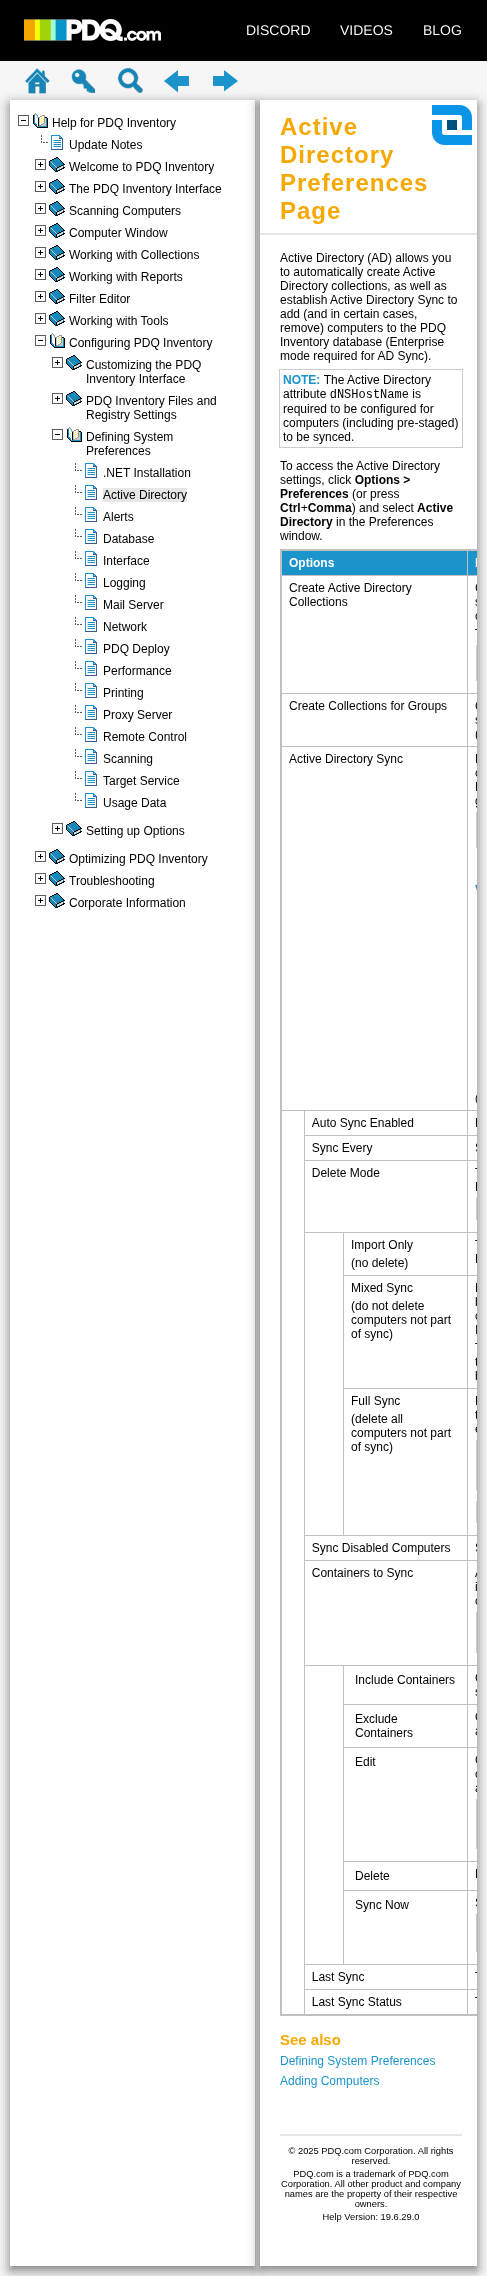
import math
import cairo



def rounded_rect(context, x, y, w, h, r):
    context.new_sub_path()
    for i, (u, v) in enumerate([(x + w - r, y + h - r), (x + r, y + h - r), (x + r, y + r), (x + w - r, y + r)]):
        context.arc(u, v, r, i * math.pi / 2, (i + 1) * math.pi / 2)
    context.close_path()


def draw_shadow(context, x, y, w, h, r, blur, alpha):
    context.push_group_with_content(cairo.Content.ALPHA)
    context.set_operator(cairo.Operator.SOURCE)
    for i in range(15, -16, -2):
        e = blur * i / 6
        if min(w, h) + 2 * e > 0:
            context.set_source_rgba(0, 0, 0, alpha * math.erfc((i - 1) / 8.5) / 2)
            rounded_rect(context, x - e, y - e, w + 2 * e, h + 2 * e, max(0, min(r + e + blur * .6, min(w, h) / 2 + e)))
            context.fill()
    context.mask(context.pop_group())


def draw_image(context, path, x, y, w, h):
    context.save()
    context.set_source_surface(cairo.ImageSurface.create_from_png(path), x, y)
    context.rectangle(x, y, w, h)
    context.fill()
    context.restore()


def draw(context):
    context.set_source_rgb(246 / 255, 246 / 255, 246 / 255)
    context.paint()
    context.set_source_rgb(0, 0, 0)
    context.rectangle(0, 0, 487, 61)
    context.fill()
    draw_image(context, "images/1.png", 24, 19, 137, 22)
    draw_image(context, "images/2.png", 25, 68, 25, 26)
    draw_image(context, "images/3.png", 71, 69, 24, 24)
    draw_image(context, "images/4.png", 117, 67, 26, 26)
    draw_image(context, "images/5.png", 164, 70, 25, 23)
    draw_image(context, "images/6.png", 213, 70, 25, 22)
    context.set_source_rgb(119 / 255, 119 / 255, 119 / 255)
    draw_shadow(context, 10, 104, 245, 2166, 0, 6, 1)
    context.set_source_rgb(1, 1, 1)
    context.rectangle(10, 100, 245, 2166)
    context.fill()
    draw_image(context, "images/7.png", 18, 113, 204, 797)
    context.set_source_rgb(119 / 255, 119 / 255, 119 / 255)
    draw_shadow(context, 260, 104, 217, 2166, 0, 6, 1)
    context.set_source_rgb(1, 1, 1)
    context.rectangle(260, 100, 217, 2166)
    context.fill()
    draw_image(context, "images/8.png", 260, 105, 217, 2117)
    context.select_font_face("Liberation Sans")
    context.set_font_size(14)
    context.move_to(246, 35)
    context.show_text("DISCORD")
    context.move_to(340, 35)
    context.show_text("VIDEOS")
    context.move_to(423, 35)
    context.show_text("BLOG")


surface = cairo.ImageSurface(cairo.Format.RGB24, 487, 2276)
context = cairo.Context(surface)
options = cairo.FontOptions()
options.set_hint_metrics(cairo.HintMetrics.OFF)
options.set_hint_style(cairo.HintStyle.NONE)
context.set_font_options(options)
context.set_miter_limit(4)
draw(context)
surface.write_to_png("out.png")
